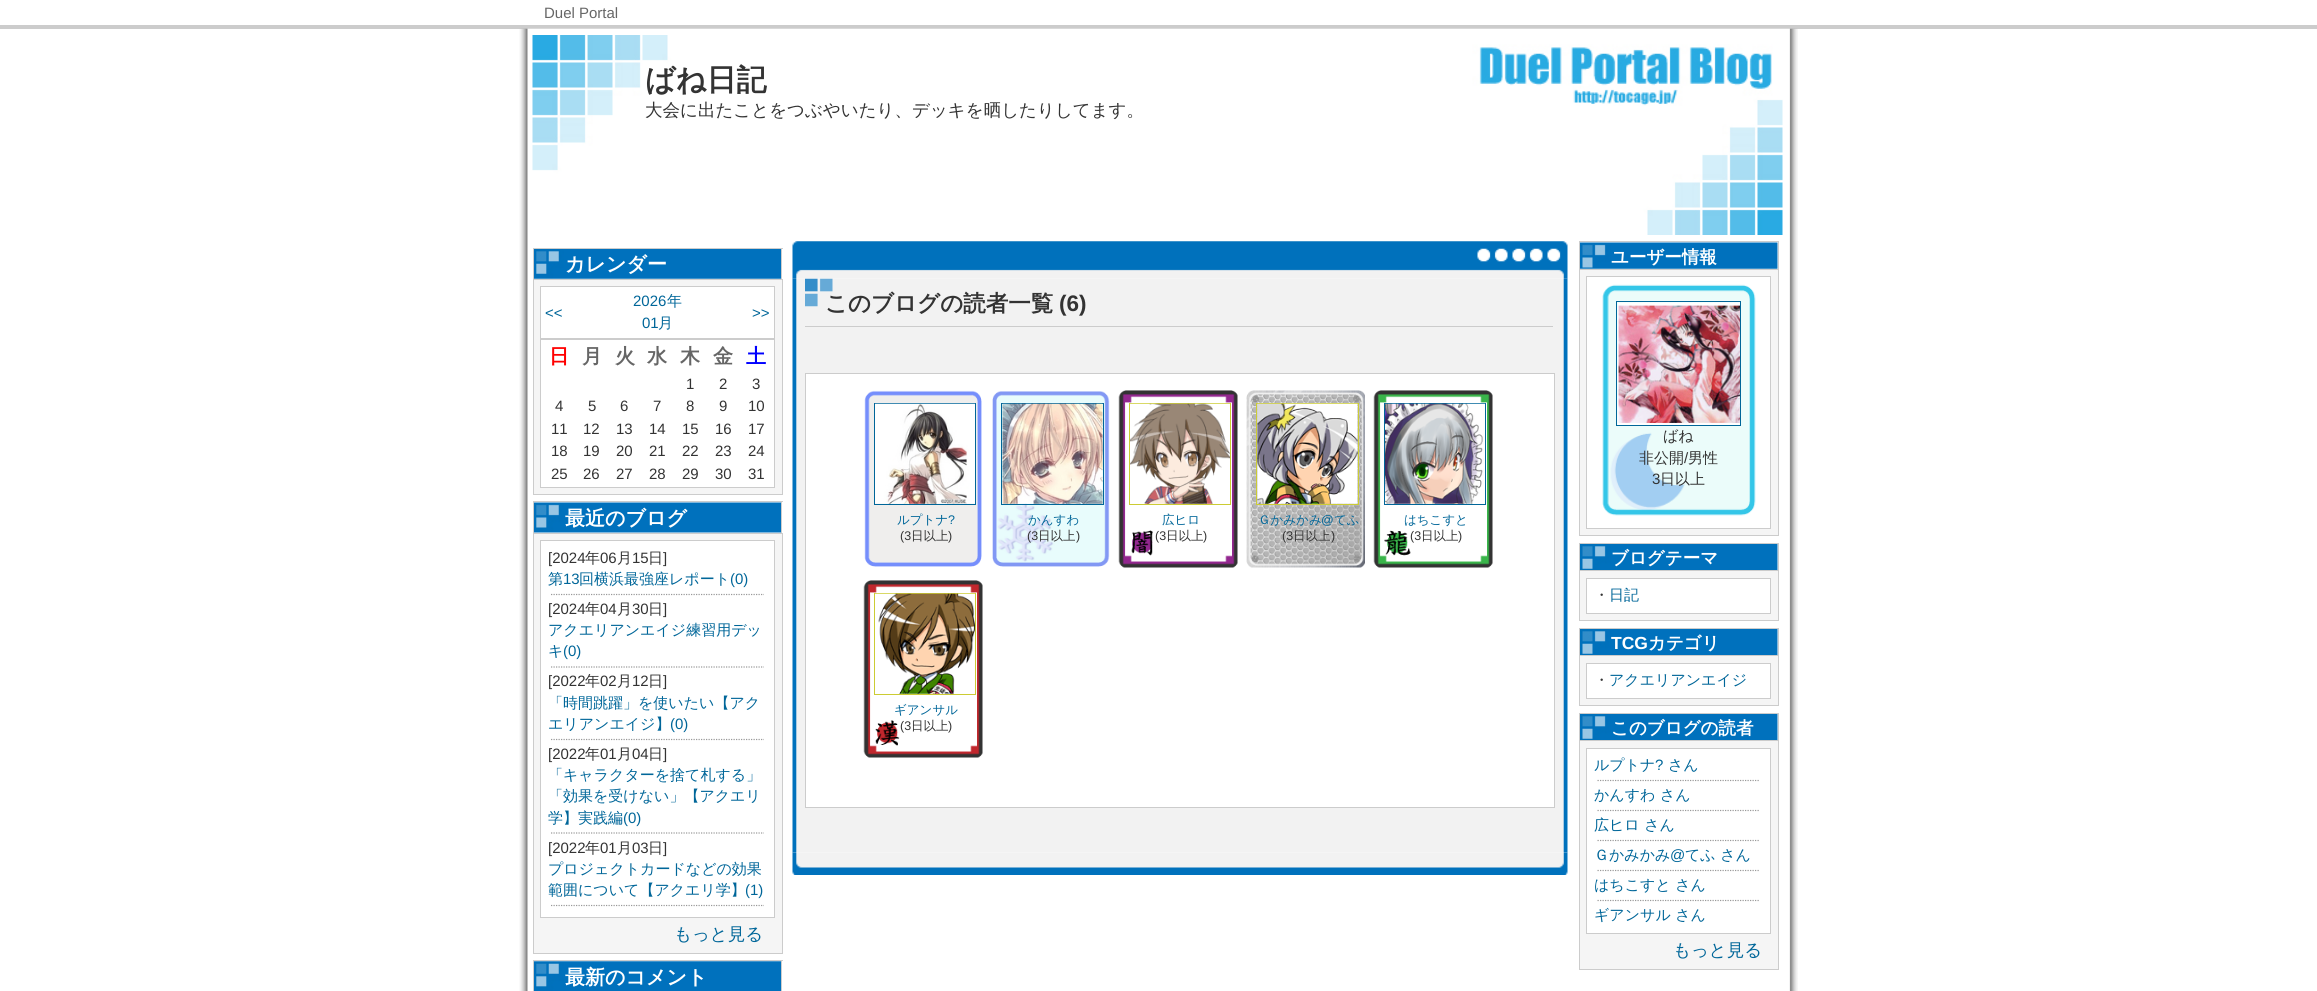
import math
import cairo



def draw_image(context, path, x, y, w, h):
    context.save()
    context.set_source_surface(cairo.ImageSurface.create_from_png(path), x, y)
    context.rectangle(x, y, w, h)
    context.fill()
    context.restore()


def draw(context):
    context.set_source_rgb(1, 1, 1)
    context.paint()
    context.set_source_rgb(204 / 255, 204 / 255, 204 / 255)
    context.rectangle(0, 25, 2317, 4)
    context.fill()
    draw_image(context, "images/1.png", 519, 28, 1279, 963)
    draw_image(context, "images/2.png", 532, 35, 1251, 200)
    draw_image(context, "images/3.png", 534, 249, 247, 30)
    context.rectangle(533, 248, 250, 1)
    context.fill()
    context.rectangle(781, 248, 1, 31)
    context.fill()
    context.rectangle(533, 248, 1, 31)
    context.fill()
    context.set_source_rgb(245 / 255, 245 / 255, 245 / 255)
    context.rectangle(533.5, 279.5, 249, 215)
    context.fill_preserve()
    context.set_source_rgb(204 / 255, 204 / 255, 204 / 255)
    context.set_line_width(1)
    context.stroke()
    context.set_source_rgb(1, 1, 1)
    context.rectangle(540.5, 286.5, 234, 52)
    context.fill_preserve()
    context.set_source_rgb(204 / 255, 204 / 255, 204 / 255)
    context.stroke()
    context.set_source_rgb(1, 1, 1)
    context.rectangle(540.5, 339.5, 234, 148)
    context.fill_preserve()
    context.set_source_rgb(204 / 255, 204 / 255, 204 / 255)
    context.stroke()
    draw_image(context, "images/4.png", 534, 502, 247, 31)
    context.rectangle(533, 501, 250, 1)
    context.fill()
    context.rectangle(781, 501, 1, 32)
    context.fill()
    context.rectangle(533, 501, 1, 32)
    context.fill()
    context.set_source_rgb(245 / 255, 245 / 255, 245 / 255)
    context.rectangle(533.5, 533.5, 249, 420)
    context.fill_preserve()
    context.set_source_rgb(204 / 255, 204 / 255, 204 / 255)
    context.stroke()
    context.set_source_rgb(1, 1, 1)
    context.rectangle(540.5, 540.5, 234, 377)
    context.fill_preserve()
    context.set_source_rgb(204 / 255, 204 / 255, 204 / 255)
    context.stroke()
    context.new_path()
    context.move_to(551, 594.5)
    context.line_to(764, 594.5)
    context.set_source_rgb(153 / 255, 153 / 255, 153 / 255)
    context.set_line_width(1.2)
    context.set_dash([1.25, 1.25])
    context.stroke()
    context.new_path()
    context.move_to(551, 667)
    context.line_to(764, 667)
    context.stroke()
    context.new_path()
    context.move_to(551, 739.5)
    context.line_to(764, 739.5)
    context.stroke()
    context.new_path()
    context.move_to(551, 833)
    context.line_to(764, 833)
    context.stroke()
    context.new_path()
    context.move_to(551, 905.5)
    context.line_to(764, 905.5)
    context.stroke()
    draw_image(context, "images/5.png", 534, 961, 247, 30)
    context.set_source_rgb(204 / 255, 204 / 255, 204 / 255)
    context.rectangle(533, 960, 250, 1)
    context.fill()
    context.rectangle(781, 960, 1, 31)
    context.fill()
    context.rectangle(533, 960, 1, 31)
    context.fill()
    draw_image(context, "images/6.png", 792, 241, 776, 38)
    draw_image(context, "images/7.png", 792, 278, 776, 575)
    draw_image(context, "images/8.png", 805, 278, 28, 29)
    context.rectangle(805, 326, 748, 1)
    context.fill()
    context.set_source_rgb(1, 1, 1)
    context.rectangle(805.5, 373.5, 749, 434)
    context.fill_preserve()
    context.set_source_rgb(204 / 255, 204 / 255, 204 / 255)
    context.set_line_width(1)
    context.set_dash([])
    context.stroke()
    draw_image(context, "images/9.png", 864, 390, 118, 177)
    context.rectangle(874.5, 403.5, 101, 101)
    context.set_source_rgb(0, 102 / 255, 153 / 255)
    context.stroke()
    draw_image(context, "images/10.png", 875, 403, 100, 101)
    draw_image(context, "images/11.png", 992, 391, 118, 176)
    context.rectangle(1001.5, 403.5, 102, 101)
    context.stroke()
    draw_image(context, "images/12.png", 1002, 403, 101, 101)
    draw_image(context, "images/13.png", 1118, 390, 120, 178)
    context.rectangle(1129.5, 403.5, 101, 101)
    context.set_source_rgb(204 / 255, 204 / 255, 51 / 255)
    context.stroke()
    draw_image(context, "images/14.png", 1130, 403, 100, 101)
    draw_image(context, "images/15.png", 1246, 390, 119, 178)
    context.rectangle(1256.5, 403.5, 102, 101)
    context.stroke()
    draw_image(context, "images/16.png", 1257, 403, 101, 101)
    draw_image(context, "images/17.png", 1373, 390, 120, 178)
    context.rectangle(1384.5, 403.5, 101, 101)
    context.set_source_rgb(0, 102 / 255, 153 / 255)
    context.stroke()
    draw_image(context, "images/18.png", 1385, 403, 100, 101)
    draw_image(context, "images/19.png", 863, 580, 120, 178)
    context.rectangle(874.5, 593.5, 101, 101)
    context.set_source_rgb(204 / 255, 204 / 255, 51 / 255)
    context.stroke()
    draw_image(context, "images/20.png", 875, 593, 100, 101)
    draw_image(context, "images/21.png", 792, 852, 776, 23)
    draw_image(context, "images/22.png", 1580, 242, 198, 27)
    context.set_source_rgb(204 / 255, 204 / 255, 204 / 255)
    context.rectangle(1579, 241, 200, 1)
    context.fill()
    context.rectangle(1778, 241, 1, 28)
    context.fill()
    context.rectangle(1579, 241, 1, 28)
    context.fill()
    context.set_source_rgb(245 / 255, 245 / 255, 245 / 255)
    context.rectangle(1579.5, 269.5, 199, 266)
    context.fill_preserve()
    context.set_source_rgb(204 / 255, 204 / 255, 204 / 255)
    context.stroke()
    context.set_source_rgb(1, 1, 1)
    context.rectangle(1586.5, 276.5, 184, 252)
    context.fill_preserve()
    context.set_source_rgb(204 / 255, 204 / 255, 204 / 255)
    context.stroke()
    draw_image(context, "images/23.png", 1602, 284, 154, 232)
    context.rectangle(1616.5, 301.5, 124, 124)
    context.set_source_rgb(0, 102 / 255, 153 / 255)
    context.stroke()
    draw_image(context, "images/24.png", 1617, 302, 123, 123)
    draw_image(context, "images/25.png", 1580, 544, 198, 26)
    context.set_source_rgb(204 / 255, 204 / 255, 204 / 255)
    context.rectangle(1579, 543, 200, 1)
    context.fill()
    context.rectangle(1778, 543, 1, 27)
    context.fill()
    context.rectangle(1579, 543, 1, 27)
    context.fill()
    context.set_source_rgb(245 / 255, 245 / 255, 245 / 255)
    context.rectangle(1579.5, 570.5, 199, 50)
    context.fill_preserve()
    context.set_source_rgb(204 / 255, 204 / 255, 204 / 255)
    context.stroke()
    context.set_source_rgb(1, 1, 1)
    context.rectangle(1586.5, 578.5, 184, 35)
    context.fill_preserve()
    context.set_source_rgb(204 / 255, 204 / 255, 204 / 255)
    context.stroke()
    draw_image(context, "images/25.png", 1580, 629, 198, 26)
    context.rectangle(1579, 628, 200, 1)
    context.fill()
    context.rectangle(1778, 628, 1, 27)
    context.fill()
    context.rectangle(1579, 628, 1, 27)
    context.fill()
    context.set_source_rgb(245 / 255, 245 / 255, 245 / 255)
    context.rectangle(1579.5, 655.5, 199, 50)
    context.fill_preserve()
    context.set_source_rgb(204 / 255, 204 / 255, 204 / 255)
    context.stroke()
    context.set_source_rgb(1, 1, 1)
    context.rectangle(1586.5, 663.5, 184, 35)
    context.fill_preserve()
    context.set_source_rgb(204 / 255, 204 / 255, 204 / 255)
    context.stroke()
    draw_image(context, "images/25.png", 1580, 714, 198, 26)
    context.rectangle(1579, 713, 200, 1)
    context.fill()
    context.rectangle(1778, 713, 1, 27)
    context.fill()
    context.rectangle(1579, 713, 1, 27)
    context.fill()
    context.set_source_rgb(245 / 255, 245 / 255, 245 / 255)
    context.rectangle(1579.5, 740.5, 199, 229)
    context.fill_preserve()
    context.set_source_rgb(204 / 255, 204 / 255, 204 / 255)
    context.stroke()
    context.set_source_rgb(1, 1, 1)
    context.rectangle(1586.5, 748.5, 184, 185)
    context.fill_preserve()
    context.set_source_rgb(204 / 255, 204 / 255, 204 / 255)
    context.stroke()
    context.new_path()
    context.move_to(1597.5, 780.5)
    context.line_to(1760, 780.5)
    context.set_source_rgb(153 / 255, 153 / 255, 153 / 255)
    context.set_line_width(1.2)
    context.set_dash([1.25, 1.25])
    context.stroke()
    context.new_path()
    context.move_to(1597.5, 810.5)
    context.line_to(1760, 810.5)
    context.stroke()
    context.new_path()
    context.move_to(1597.5, 840.5)
    context.line_to(1760, 840.5)
    context.stroke()
    context.new_path()
    context.move_to(1597.5, 870.5)
    context.line_to(1760, 870.5)
    context.stroke()
    context.new_path()
    context.move_to(1597.5, 900.5)
    context.line_to(1760, 900.5)
    context.stroke()
    context.select_font_face("Liberation Sans")
    context.set_font_size(15)
    context.set_source_rgb(102 / 255, 102 / 255, 102 / 255)
    context.move_to(544, 18)
    context.show_text("Duel Portal")
    context.select_font_face("WenQuanYi Zen Hei", cairo.FontSlant.NORMAL, cairo.FontWeight.BOLD)
    context.set_font_size(30)
    context.set_source_rgb(51 / 255, 51 / 255, 51 / 255)
    context.move_to(645, 90)
    context.show_text("ばね日記")
    context.select_font_face("WenQuanYi Zen Hei Medium")
    context.set_font_size(17.5)
    context.move_to(645, 116)
    context.show_text("大会に出たことをつぶやいたり、デッキを晒したりしてます。")
    context.select_font_face("WenQuanYi Zen Hei", cairo.FontSlant.NORMAL, cairo.FontWeight.BOLD)
    context.set_font_size(20)
    context.set_source_rgb(1, 1, 1)
    context.move_to(565, 271)
    context.show_text("カレンダー")
    context.select_font_face("Liberation Sans")
    context.set_font_size(15)
    context.set_source_rgb(0, 102 / 255, 153 / 255)
    context.move_to(545, 318)
    context.show_text("<<")
    context.move_to(633, 306)
    context.show_text("2026")
    context.select_font_face("WenQuanYi Zen Hei Medium")
    context.move_to(667, 306)
    context.show_text("年")
    context.select_font_face("Liberation Sans")
    context.move_to(642, 328)
    context.show_text("01")
    context.select_font_face("WenQuanYi Zen Hei Medium")
    context.move_to(658, 328)
    context.show_text("月")
    context.select_font_face("Liberation Sans")
    context.move_to(752, 318)
    context.show_text(">>")
    context.select_font_face("WenQuanYi Zen Hei", cairo.FontSlant.NORMAL, cairo.FontWeight.BOLD)
    context.set_font_size(20)
    context.set_source_rgb(1, 0, 0)
    context.move_to(549, 363)
    context.show_text("日")
    context.set_source_rgb(102 / 255, 102 / 255, 102 / 255)
    context.move_to(582, 363)
    context.show_text("月")
    context.move_to(615, 363)
    context.show_text("火")
    context.move_to(647, 363)
    context.show_text("水")
    context.move_to(680, 363)
    context.show_text("木")
    context.move_to(713, 363)
    context.show_text("金")
    context.set_source_rgb(0, 0, 1)
    context.move_to(746, 363)
    context.show_text("土")
    context.select_font_face("Liberation Sans")
    context.set_font_size(15)
    context.set_source_rgb(51 / 255, 51 / 255, 51 / 255)
    context.move_to(686, 389)
    context.show_text("1")
    context.move_to(719, 389)
    context.show_text("2")
    context.move_to(752, 389)
    context.show_text("3")
    context.move_to(555, 411)
    context.show_text("4")
    context.move_to(588, 411)
    context.show_text("5")
    context.move_to(620, 411)
    context.show_text("6")
    context.move_to(653, 411)
    context.show_text("7")
    context.move_to(686, 411)
    context.show_text("8")
    context.move_to(719, 411)
    context.show_text("9")
    context.move_to(748, 411)
    context.show_text("10")
    context.move_to(551, 434)
    context.show_text("11")
    context.move_to(583, 434)
    context.show_text("12")
    context.move_to(616, 434)
    context.show_text("13")
    context.move_to(649, 434)
    context.show_text("14")
    context.move_to(682, 434)
    context.show_text("15")
    context.move_to(715, 434)
    context.show_text("16")
    context.move_to(748, 434)
    context.show_text("17")
    context.move_to(551, 456)
    context.show_text("18")
    context.move_to(583, 456)
    context.show_text("19")
    context.move_to(616, 456)
    context.show_text("20")
    context.move_to(649, 456)
    context.show_text("21")
    context.move_to(682, 456)
    context.show_text("22")
    context.move_to(715, 456)
    context.show_text("23")
    context.move_to(748, 456)
    context.show_text("24")
    context.move_to(551, 479)
    context.show_text("25")
    context.move_to(583, 479)
    context.show_text("26")
    context.move_to(616, 479)
    context.show_text("27")
    context.move_to(649, 479)
    context.show_text("28")
    context.move_to(682, 479)
    context.show_text("29")
    context.move_to(715, 479)
    context.show_text("30")
    context.move_to(748, 479)
    context.show_text("31")
    context.select_font_face("WenQuanYi Zen Hei", cairo.FontSlant.NORMAL, cairo.FontWeight.BOLD)
    context.set_font_size(20)
    context.set_source_rgb(1, 1, 1)
    context.move_to(565, 525)
    context.show_text("最近のブログ")
    context.select_font_face("Liberation Sans")
    context.set_font_size(15)
    context.set_source_rgb(51 / 255, 51 / 255, 51 / 255)
    context.move_to(548, 563)
    context.show_text("[2024")
    context.select_font_face("WenQuanYi Zen Hei Medium")
    context.move_to(585, 563)
    context.show_text("年")
    context.select_font_face("Liberation Sans")
    context.move_to(600, 563)
    context.show_text("06")
    context.select_font_face("WenQuanYi Zen Hei Medium")
    context.move_to(617, 563)
    context.show_text("月")
    context.select_font_face("Liberation Sans")
    context.move_to(632, 563)
    context.show_text("15")
    context.select_font_face("WenQuanYi Zen Hei Medium")
    context.move_to(648, 563)
    context.show_text("日")
    context.select_font_face("Liberation Sans")
    context.move_to(663, 563)
    context.show_text("]")
    context.select_font_face("WenQuanYi Zen Hei Medium")
    context.set_source_rgb(0, 102 / 255, 153 / 255)
    context.move_to(548, 584)
    context.show_text("第")
    context.select_font_face("Liberation Sans")
    context.move_to(563, 584)
    context.show_text("13")
    context.select_font_face("WenQuanYi Zen Hei Medium")
    context.move_to(579, 584)
    context.show_text("回横浜最強座レポート")
    context.select_font_face("Liberation Sans")
    context.move_to(730, 584)
    context.show_text("(0)")
    context.set_source_rgb(51 / 255, 51 / 255, 51 / 255)
    context.move_to(548, 614)
    context.show_text("[2024")
    context.select_font_face("WenQuanYi Zen Hei Medium")
    context.move_to(585, 614)
    context.show_text("年")
    context.select_font_face("Liberation Sans")
    context.move_to(600, 614)
    context.show_text("04")
    context.select_font_face("WenQuanYi Zen Hei Medium")
    context.move_to(617, 614)
    context.show_text("月")
    context.select_font_face("Liberation Sans")
    context.move_to(632, 614)
    context.show_text("30")
    context.select_font_face("WenQuanYi Zen Hei Medium")
    context.move_to(648, 614)
    context.show_text("日")
    context.select_font_face("Liberation Sans")
    context.move_to(663, 614)
    context.show_text("]")
    context.select_font_face("WenQuanYi Zen Hei Medium")
    context.set_source_rgb(0, 102 / 255, 153 / 255)
    context.move_to(548, 635)
    context.show_text("アクエリアンエイジ練習用デッ")
    context.move_to(548, 656)
    context.show_text("キ")
    context.select_font_face("Liberation Sans")
    context.move_to(563, 656)
    context.show_text("(0)")
    context.set_source_rgb(51 / 255, 51 / 255, 51 / 255)
    context.move_to(548, 686)
    context.show_text("[2022")
    context.select_font_face("WenQuanYi Zen Hei Medium")
    context.move_to(585, 686)
    context.show_text("年")
    context.select_font_face("Liberation Sans")
    context.move_to(600, 686)
    context.show_text("02")
    context.select_font_face("WenQuanYi Zen Hei Medium")
    context.move_to(617, 686)
    context.show_text("月")
    context.select_font_face("Liberation Sans")
    context.move_to(632, 686)
    context.show_text("12")
    context.select_font_face("WenQuanYi Zen Hei Medium")
    context.move_to(648, 686)
    context.show_text("日")
    context.select_font_face("Liberation Sans")
    context.move_to(663, 686)
    context.show_text("]")
    context.select_font_face("WenQuanYi Zen Hei Medium")
    context.set_source_rgb(0, 102 / 255, 153 / 255)
    context.move_to(548, 708)
    context.show_text("「時間跳躍」を使いたい【アク")
    context.move_to(548, 729)
    context.show_text("エリアンエイジ】")
    context.select_font_face("Liberation Sans")
    context.move_to(670, 729)
    context.show_text("(0)")
    context.set_source_rgb(51 / 255, 51 / 255, 51 / 255)
    context.move_to(548, 759)
    context.show_text("[2022")
    context.select_font_face("WenQuanYi Zen Hei Medium")
    context.move_to(585, 759)
    context.show_text("年")
    context.select_font_face("Liberation Sans")
    context.move_to(600, 759)
    context.show_text("01")
    context.select_font_face("WenQuanYi Zen Hei Medium")
    context.move_to(617, 759)
    context.show_text("月")
    context.select_font_face("Liberation Sans")
    context.move_to(632, 759)
    context.show_text("04")
    context.select_font_face("WenQuanYi Zen Hei Medium")
    context.move_to(648, 759)
    context.show_text("日")
    context.select_font_face("Liberation Sans")
    context.move_to(663, 759)
    context.show_text("]")
    context.select_font_face("WenQuanYi Zen Hei Medium")
    context.set_source_rgb(0, 102 / 255, 153 / 255)
    context.move_to(548, 780)
    context.show_text("「キャラクターを捨て札する」")
    context.move_to(548, 801)
    context.show_text("「効果を受けない」【アクエリ")
    context.move_to(548, 823)
    context.show_text("学】実践編")
    context.select_font_face("Liberation Sans")
    context.move_to(623, 823)
    context.show_text("(0)")
    context.set_source_rgb(51 / 255, 51 / 255, 51 / 255)
    context.move_to(548, 853)
    context.show_text("[2022")
    context.select_font_face("WenQuanYi Zen Hei Medium")
    context.move_to(585, 853)
    context.show_text("年")
    context.select_font_face("Liberation Sans")
    context.move_to(600, 853)
    context.show_text("01")
    context.select_font_face("WenQuanYi Zen Hei Medium")
    context.move_to(617, 853)
    context.show_text("月")
    context.select_font_face("Liberation Sans")
    context.move_to(632, 853)
    context.show_text("03")
    context.select_font_face("WenQuanYi Zen Hei Medium")
    context.move_to(648, 853)
    context.show_text("日")
    context.select_font_face("Liberation Sans")
    context.move_to(663, 853)
    context.show_text("]")
    context.select_font_face("WenQuanYi Zen Hei Medium")
    context.set_source_rgb(0, 102 / 255, 153 / 255)
    context.move_to(548, 874)
    context.show_text("プロジェクトカードなどの効果")
    context.move_to(548, 895)
    context.show_text("範囲について【アクエリ学】")
    context.select_font_face("Liberation Sans")
    context.move_to(745, 895)
    context.show_text("(1)")
    context.select_font_face("WenQuanYi Zen Hei Medium")
    context.set_font_size(17.5)
    context.move_to(674, 940)
    context.show_text("もっと見る")
    context.select_font_face("WenQuanYi Zen Hei", cairo.FontSlant.NORMAL, cairo.FontWeight.BOLD)
    context.set_font_size(20)
    context.set_source_rgb(1, 1, 1)
    context.move_to(565, 984)
    context.show_text("最新のコメント")
    context.set_font_size(22.5)
    context.set_source_rgb(51 / 255, 51 / 255, 51 / 255)
    context.move_to(825, 311)
    context.show_text("このブログの読者一覧")
    context.select_font_face("Liberation Sans", cairo.FontSlant.NORMAL, cairo.FontWeight.BOLD)
    context.move_to(1059, 311)
    context.show_text("(6)")
    context.select_font_face("WenQuanYi Zen Hei Medium")
    context.set_font_size(12.5)
    context.set_source_rgb(0, 102 / 255, 153 / 255)
    context.move_to(897, 524)
    context.show_text("ルプトナ")
    context.select_font_face("Liberation Sans")
    context.move_to(948, 524)
    context.show_text("?")
    context.set_source_rgb(51 / 255, 51 / 255, 51 / 255)
    context.move_to(900, 540)
    context.show_text("(3")
    context.select_font_face("WenQuanYi Zen Hei Medium")
    context.move_to(911, 540)
    context.show_text("日以上")
    context.select_font_face("Liberation Sans")
    context.move_to(948, 540)
    context.show_text(")")
    context.select_font_face("WenQuanYi Zen Hei Medium")
    context.set_source_rgb(0, 102 / 255, 153 / 255)
    context.move_to(1028, 524)
    context.show_text("かんすわ")
    context.select_font_face("Liberation Sans")
    context.set_source_rgb(51 / 255, 51 / 255, 51 / 255)
    context.move_to(1027, 540)
    context.show_text("(3")
    context.select_font_face("WenQuanYi Zen Hei Medium")
    context.move_to(1038, 540)
    context.show_text("日以上")
    context.select_font_face("Liberation Sans")
    context.move_to(1076, 540)
    context.show_text(")")
    context.select_font_face("WenQuanYi Zen Hei Medium")
    context.set_source_rgb(0, 102 / 255, 153 / 255)
    context.move_to(1162, 524)
    context.show_text("広ヒロ")
    context.select_font_face("Liberation Sans")
    context.set_source_rgb(51 / 255, 51 / 255, 51 / 255)
    context.move_to(1155, 540)
    context.show_text("(3")
    context.select_font_face("WenQuanYi Zen Hei Medium")
    context.move_to(1166, 540)
    context.show_text("日以上")
    context.select_font_face("Liberation Sans")
    context.move_to(1203, 540)
    context.show_text(")")
    context.select_font_face("WenQuanYi Zen Hei Medium")
    context.set_source_rgb(0, 102 / 255, 153 / 255)
    context.move_to(1258, 524)
    context.show_text("Ｇかみかみ")
    context.select_font_face("Liberation Sans")
    context.move_to(1321, 524)
    context.show_text("@")
    context.select_font_face("WenQuanYi Zen Hei Medium")
    context.move_to(1334, 524)
    context.show_text("てふ")
    context.select_font_face("Liberation Sans")
    context.set_source_rgb(51 / 255, 51 / 255, 51 / 255)
    context.move_to(1282, 540)
    context.show_text("(3")
    context.select_font_face("WenQuanYi Zen Hei Medium")
    context.move_to(1293, 540)
    context.show_text("日以上")
    context.select_font_face("Liberation Sans")
    context.move_to(1331, 540)
    context.show_text(")")
    context.select_font_face("WenQuanYi Zen Hei Medium")
    context.set_source_rgb(0, 102 / 255, 153 / 255)
    context.move_to(1404, 524)
    context.show_text("はちこすと")
    context.select_font_face("Liberation Sans")
    context.set_source_rgb(51 / 255, 51 / 255, 51 / 255)
    context.move_to(1410, 540)
    context.show_text("(3")
    context.select_font_face("WenQuanYi Zen Hei Medium")
    context.move_to(1421, 540)
    context.show_text("日以上")
    context.select_font_face("Liberation Sans")
    context.move_to(1458, 540)
    context.show_text(")")
    context.select_font_face("WenQuanYi Zen Hei Medium")
    context.set_source_rgb(0, 102 / 255, 153 / 255)
    context.move_to(894, 714)
    context.show_text("ギアンサル")
    context.select_font_face("Liberation Sans")
    context.set_source_rgb(51 / 255, 51 / 255, 51 / 255)
    context.move_to(900, 730)
    context.show_text("(3")
    context.select_font_face("WenQuanYi Zen Hei Medium")
    context.move_to(911, 730)
    context.show_text("日以上")
    context.select_font_face("Liberation Sans")
    context.move_to(948, 730)
    context.show_text(")")
    context.select_font_face("WenQuanYi Zen Hei", cairo.FontSlant.NORMAL, cairo.FontWeight.BOLD)
    context.set_font_size(17.5)
    context.set_source_rgb(1, 1, 1)
    context.move_to(1611, 263)
    context.show_text("ユーザー情報")
    context.select_font_face("WenQuanYi Zen Hei Medium")
    context.set_font_size(15)
    context.set_source_rgb(51 / 255, 51 / 255, 51 / 255)
    context.move_to(1663, 441)
    context.show_text("ばね")
    context.move_to(1639, 463)
    context.show_text("非公開")
    context.select_font_face("Liberation Sans")
    context.move_to(1684, 463)
    context.show_text("/")
    context.select_font_face("WenQuanYi Zen Hei Medium")
    context.move_to(1688, 463)
    context.show_text("男性")
    context.select_font_face("Liberation Sans")
    context.move_to(1652, 484)
    context.show_text("3")
    context.select_font_face("WenQuanYi Zen Hei Medium")
    context.move_to(1660, 484)
    context.show_text("日以上")
    context.select_font_face("WenQuanYi Zen Hei", cairo.FontSlant.NORMAL, cairo.FontWeight.BOLD)
    context.set_font_size(17.5)
    context.set_source_rgb(1, 1, 1)
    context.move_to(1611, 564)
    context.show_text("ブログテーマ")
    context.select_font_face("WenQuanYi Zen Hei Medium")
    context.set_font_size(15)
    context.set_source_rgb(51 / 255, 51 / 255, 51 / 255)
    context.move_to(1594, 600)
    context.show_text("・")
    context.set_source_rgb(0, 102 / 255, 153 / 255)
    context.move_to(1609, 600)
    context.show_text("日記")
    context.select_font_face("Liberation Sans", cairo.FontSlant.NORMAL, cairo.FontWeight.BOLD)
    context.set_font_size(17.5)
    context.set_source_rgb(1, 1, 1)
    context.move_to(1611, 649)
    context.show_text("TCG")
    context.select_font_face("WenQuanYi Zen Hei", cairo.FontSlant.NORMAL, cairo.FontWeight.BOLD)
    context.move_to(1648, 649)
    context.show_text("カテゴリ")
    context.select_font_face("WenQuanYi Zen Hei Medium")
    context.set_font_size(15)
    context.set_source_rgb(51 / 255, 51 / 255, 51 / 255)
    context.move_to(1594, 685)
    context.show_text("・")
    context.set_source_rgb(0, 102 / 255, 153 / 255)
    context.move_to(1609, 685)
    context.show_text("アクエリアンエイジ")
    context.select_font_face("WenQuanYi Zen Hei", cairo.FontSlant.NORMAL, cairo.FontWeight.BOLD)
    context.set_font_size(17.5)
    context.set_source_rgb(1, 1, 1)
    context.move_to(1611, 734)
    context.show_text("このブログの読者")
    context.select_font_face("WenQuanYi Zen Hei Medium")
    context.set_font_size(15)
    context.set_source_rgb(0, 102 / 255, 153 / 255)
    context.move_to(1594, 770)
    context.show_text("ルプトナ")
    context.select_font_face("Liberation Sans")
    context.move_to(1655, 770)
    context.show_text("?")
    context.select_font_face("WenQuanYi Zen Hei Medium")
    context.move_to(1668, 770)
    context.show_text("さん")
    context.move_to(1594, 800)
    context.show_text("かんすわ さん")
    context.move_to(1594, 830)
    context.show_text("広ヒロ さん")
    context.move_to(1594, 860)
    context.show_text("Ｇかみかみ")
    context.select_font_face("Liberation Sans")
    context.move_to(1670, 860)
    context.show_text("@")
    context.select_font_face("WenQuanYi Zen Hei Medium")
    context.move_to(1685, 860)
    context.show_text("てふ さん")
    context.move_to(1594, 890)
    context.show_text("はちこすと さん")
    context.move_to(1594, 920)
    context.show_text("ギアンサル さん")
    context.set_font_size(17.5)
    context.move_to(1673, 956)
    context.show_text("もっと見る")


surface = cairo.ImageSurface(cairo.Format.RGB24, 2317, 991)
context = cairo.Context(surface)
options = cairo.FontOptions()
options.set_hint_metrics(cairo.HintMetrics.OFF)
options.set_hint_style(cairo.HintStyle.NONE)
context.set_font_options(options)
context.set_miter_limit(4)
draw(context)
surface.write_to_png("out.png")
